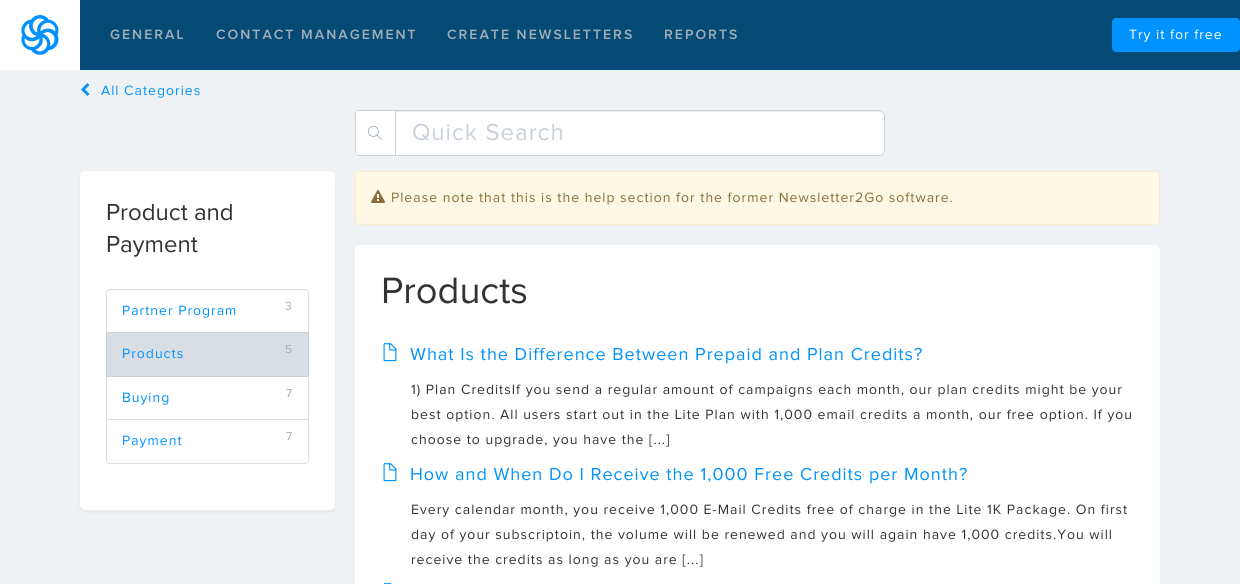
import math
import cairo



def draw_spaced(context, x, y, s, letter, word):
    context.move_to(x, y)
    for ch in s:
        context.show_text(ch)
        context.rel_move_to(letter + word * (ch == ' '), 0)


def rounded_rect(context, x, y, w, h, r):
    context.new_sub_path()
    for i, (u, v) in enumerate([(x + w - r, y + h - r), (x + r, y + h - r), (x + r, y + r), (x + w - r, y + r)]):
        context.arc(u, v, r, i * math.pi / 2, (i + 1) * math.pi / 2)
    context.close_path()


def draw_shadow(context, x, y, w, h, r, blur, alpha):
    context.push_group_with_content(cairo.Content.ALPHA)
    context.set_operator(cairo.Operator.SOURCE)
    for i in range(15, -16, -2):
        e = blur * i / 6
        if min(w, h) + 2 * e > 0:
            context.set_source_rgba(0, 0, 0, alpha * math.erfc((i - 1) / 8.5) / 2)
            rounded_rect(context, x - e, y - e, w + 2 * e, h + 2 * e, max(0, min(r + e + blur * .6, min(w, h) / 2 + e)))
            context.fill()
    context.mask(context.pop_group())


def draw_image(context, path, x, y, w, h):
    context.save()
    context.set_source_surface(cairo.ImageSurface.create_from_png(path), x, y)
    context.rectangle(x, y, w, h)
    context.fill()
    context.restore()


def draw(context):
    context.set_source_rgb(238 / 255, 242 / 255, 245 / 255)
    context.paint()
    context.set_source_rgb(4 / 255, 74 / 255, 117 / 255)
    context.rectangle(80, 0, 1160, 70)
    context.fill()
    context.set_source_rgb(1, 1, 1)
    context.rectangle(0, 0, 80, 70)
    context.fill()
    draw_image(context, "images/1.png", 21, 15, 38, 40)
    context.set_source_rgb(0, 146 / 255, 1)
    rounded_rect(context, 1112, 18, 128, 34, 4)
    context.fill()
    draw_image(context, "images/2.png", 81, 83, 9, 13)
    context.set_source_rgb(1, 1, 1)
    context.new_path()
    context.move_to(359, 110)
    context.line_to(395, 110)
    context.line_to(395, 156)
    context.line_to(359, 156)
    context.curve_to(357, 156, 355, 154, 355, 152)
    context.line_to(355, 114)
    context.curve_to(355, 112, 357, 110, 359, 110)
    context.close_path()
    context.fill()
    context.set_source_rgb(201 / 255, 209 / 255, 218 / 255)
    context.set_fill_rule(cairo.FillRule.EVEN_ODD)
    context.new_path()
    context.move_to(359, 110)
    context.line_to(395, 110)
    context.line_to(395, 156)
    context.line_to(359, 156)
    context.curve_to(357, 156, 355, 154, 355, 152)
    context.line_to(355, 114)
    context.curve_to(355, 112, 357, 110, 359, 110)
    context.close_path()
    context.move_to(359, 111)
    context.line_to(395, 111)
    context.line_to(395, 155)
    context.line_to(359, 155)
    context.curve_to(357, 155, 356, 154, 356, 152)
    context.line_to(356, 114)
    context.curve_to(356, 112, 357, 111, 359, 111)
    context.close_path()
    context.fill()
    draw_image(context, "images/3.png", 368, 125, 14, 15)
    context.set_source_rgb(1, 1, 1)
    context.new_path()
    context.move_to(395, 110)
    context.line_to(879, 110)
    context.curve_to(882.5, 110, 885, 112.5, 885, 116)
    context.line_to(885, 150)
    context.curve_to(885, 153.5, 882.5, 156, 879, 156)
    context.line_to(395, 156)
    context.close_path()
    context.fill()
    context.set_source_rgb(236 / 255, 236 / 255, 236 / 255)
    context.set_fill_rule(cairo.FillRule.WINDING)
    context.new_path()
    context.move_to(396, 112)
    context.line_to(879, 112)
    context.curve_to(882, 112, 884, 114, 884, 117)
    context.line_to(884, 116)
    context.curve_to(884, 113, 882, 111, 879, 111)
    context.line_to(396, 111)
    context.close_path()
    context.fill()
    context.new_path()
    context.move_to(395.5, 110.5)
    context.line_to(879, 110.5)
    context.curve_to(882, 110.5, 884.5, 113, 884.5, 116)
    context.line_to(884.5, 150)
    context.curve_to(884.5, 153, 882, 155.5, 879, 155.5)
    context.line_to(395.5, 155.5)
    context.close_path()
    context.set_source_rgb(201 / 255, 209 / 255, 218 / 255)
    context.set_line_width(1)
    context.stroke()
    context.set_source_rgb(0, 0, 0)
    draw_shadow(context, 80, 173, 255, 339, 5, 1.5, 0.05)
    context.set_source_rgb(1, 1, 1)
    rounded_rect(context, 80, 171, 255, 339, 5)
    context.fill()
    context.new_path()
    context.move_to(110, 289.5)
    context.line_to(305, 289.5)
    context.curve_to(307, 289.5, 308.5, 291, 308.5, 293)
    context.line_to(308.5, 332.5)
    context.line_to(106.5, 332.5)
    context.line_to(106.5, 293)
    context.curve_to(106.5, 291, 108, 289.5, 110, 289.5)
    context.close_path()
    context.set_source_rgb(221 / 255, 221 / 255, 221 / 255)
    context.stroke()
    context.rectangle(106.5, 376.5, 202, 43)
    context.stroke()
    context.set_source_rgb(216 / 255, 222 / 255, 228 / 255)
    context.rectangle(106.5, 332.5, 202, 44)
    context.fill_preserve()
    context.set_source_rgb(201 / 255, 209 / 255, 218 / 255)
    context.stroke()
    context.set_source_rgb(1, 1, 1)
    context.new_path()
    context.move_to(106.5, 419.5)
    context.line_to(308.5, 419.5)
    context.line_to(308.5, 460)
    context.curve_to(308.5, 462, 307, 463.5, 305, 463.5)
    context.line_to(110, 463.5)
    context.curve_to(108, 463.5, 106.5, 462, 106.5, 460)
    context.close_path()
    context.fill_preserve()
    context.set_source_rgb(221 / 255, 221 / 255, 221 / 255)
    context.stroke()
    context.set_source_rgb(252 / 255, 248 / 255, 227 / 255)
    rounded_rect(context, 355.5, 171.5, 804, 53, 3.5)
    context.fill_preserve()
    context.set_source_rgb(250 / 255, 235 / 255, 204 / 255)
    context.stroke()
    draw_image(context, "images/4.png", 371, 190, 14, 13)
    context.set_source_rgb(1, 1, 1)
    rounded_rect(context, 355, 245, 805, 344, 5)
    context.fill()
    draw_image(context, "images/5.png", 383, 343, 14, 19)
    draw_image(context, "images/5.png", 383, 463, 14, 19)
    draw_image(context, "images/6.png", 383, 583, 9, 1)
    context.select_font_face("Proxima Nova SemiBold")
    context.set_font_size(14)
    context.set_source_rgb(160 / 255, 173 / 255, 184 / 255)
    draw_spaced(context, 110, 39, "GENERAL", 2, 0)
    draw_spaced(context, 216, 39, "CONTACT MANAGEMENT", 2, 0)
    draw_spaced(context, 447, 39, "CREATE NEWSLETTERS", 2, 0)
    draw_spaced(context, 664, 39, "REPORTS", 2, 0)
    context.select_font_face("Proxima Nova")
    context.set_source_rgb(1, 1, 1)
    draw_spaced(context, 1129, 39, "Try it for free", 1, 0)
    context.set_source_rgb(0, 146 / 255, 1)
    draw_spaced(context, 101, 95, "All Categories", 1, 0)
    context.set_font_size(24)
    context.set_source_rgb(201 / 255, 209 / 255, 218 / 255)
    draw_spaced(context, 412, 140, "Quick Search", 1, 0)
    context.set_source_rgb(51 / 255, 51 / 255, 51 / 255)
    context.move_to(106, 220)
    context.show_text("Product and")
    context.move_to(106, 252)
    context.show_text("Payment")
    context.set_font_size(14)
    context.set_source_rgb(0, 146 / 255, 1)
    draw_spaced(context, 122, 315, "Partner Program", 1, 0)
    context.set_font_size(12)
    context.set_source_rgb(160 / 255, 173 / 255, 184 / 255)
    draw_spaced(context, 285, 310, "3", 1, 0)
    context.set_font_size(14)
    context.set_source_rgb(0, 146 / 255, 1)
    draw_spaced(context, 122, 358, "Products", 1, 0)
    context.set_font_size(12)
    context.set_source_rgb(160 / 255, 173 / 255, 184 / 255)
    draw_spaced(context, 285, 353, "5", 1, 0)
    context.set_font_size(14)
    context.set_source_rgb(0, 146 / 255, 1)
    draw_spaced(context, 122, 402, "Buying", 1, 0)
    context.set_font_size(12)
    context.set_source_rgb(160 / 255, 173 / 255, 184 / 255)
    draw_spaced(context, 286, 397, "7", 1, 0)
    context.set_font_size(14)
    context.set_source_rgb(0, 146 / 255, 1)
    draw_spaced(context, 122, 445, "Payment", 1, 0)
    context.set_font_size(12)
    context.set_source_rgb(160 / 255, 173 / 255, 184 / 255)
    draw_spaced(context, 286, 440, "7", 1, 0)
    context.set_font_size(14)
    context.set_source_rgb(138 / 255, 109 / 255, 59 / 255)
    draw_spaced(context, 391, 202, "Please note that this is the help section for the former Newsletter2Go software.", 1, 0)
    context.set_font_size(38)
    context.set_source_rgb(51 / 255, 51 / 255, 51 / 255)
    context.move_to(381, 303)
    context.show_text("Products")
    context.set_font_size(18)
    context.set_source_rgb(0, 146 / 255, 1)
    draw_spaced(context, 410, 360, "What Is the Difference Between Prepaid and Plan Credits?", 1, 0)
    context.set_font_size(14)
    context.set_source_rgb(51 / 255, 51 / 255, 51 / 255)
    draw_spaced(context, 411, 394, "1) Plan CreditsIf you send a regular amount of campaigns each month, our plan credits might be your", 1, 0)
    draw_spaced(context, 411, 419, "best option. All users start out in the Lite Plan with 1,000 email credits a month, our free option. If you", 1, 0)
    draw_spaced(context, 411, 444, "choose to upgrade, you have the [...]", 1, 0)
    context.set_font_size(18)
    context.set_source_rgb(0, 146 / 255, 1)
    draw_spaced(context, 410, 480, "How and When Do I Receive the 1,000 Free Credits per Month?", 1, 0)
    context.set_font_size(14)
    context.set_source_rgb(51 / 255, 51 / 255, 51 / 255)
    draw_spaced(context, 411, 514, "Every calendar month, you receive 1,000 E-Mail Credits free of charge in the Lite 1K Package. On first", 1, 0)
    draw_spaced(context, 411, 539, "day of your subscriptoin, the volume will be renewed and you will again have 1,000 credits.You will", 1, 0)
    draw_spaced(context, 411, 564, "receive the credits as long as you are [...]", 1, 0)


surface = cairo.ImageSurface(cairo.Format.RGB24, 1240, 584)
context = cairo.Context(surface)
options = cairo.FontOptions()
options.set_hint_metrics(cairo.HintMetrics.OFF)
options.set_hint_style(cairo.HintStyle.NONE)
context.set_font_options(options)
context.set_miter_limit(4)
draw(context)
surface.write_to_png("out.png")
